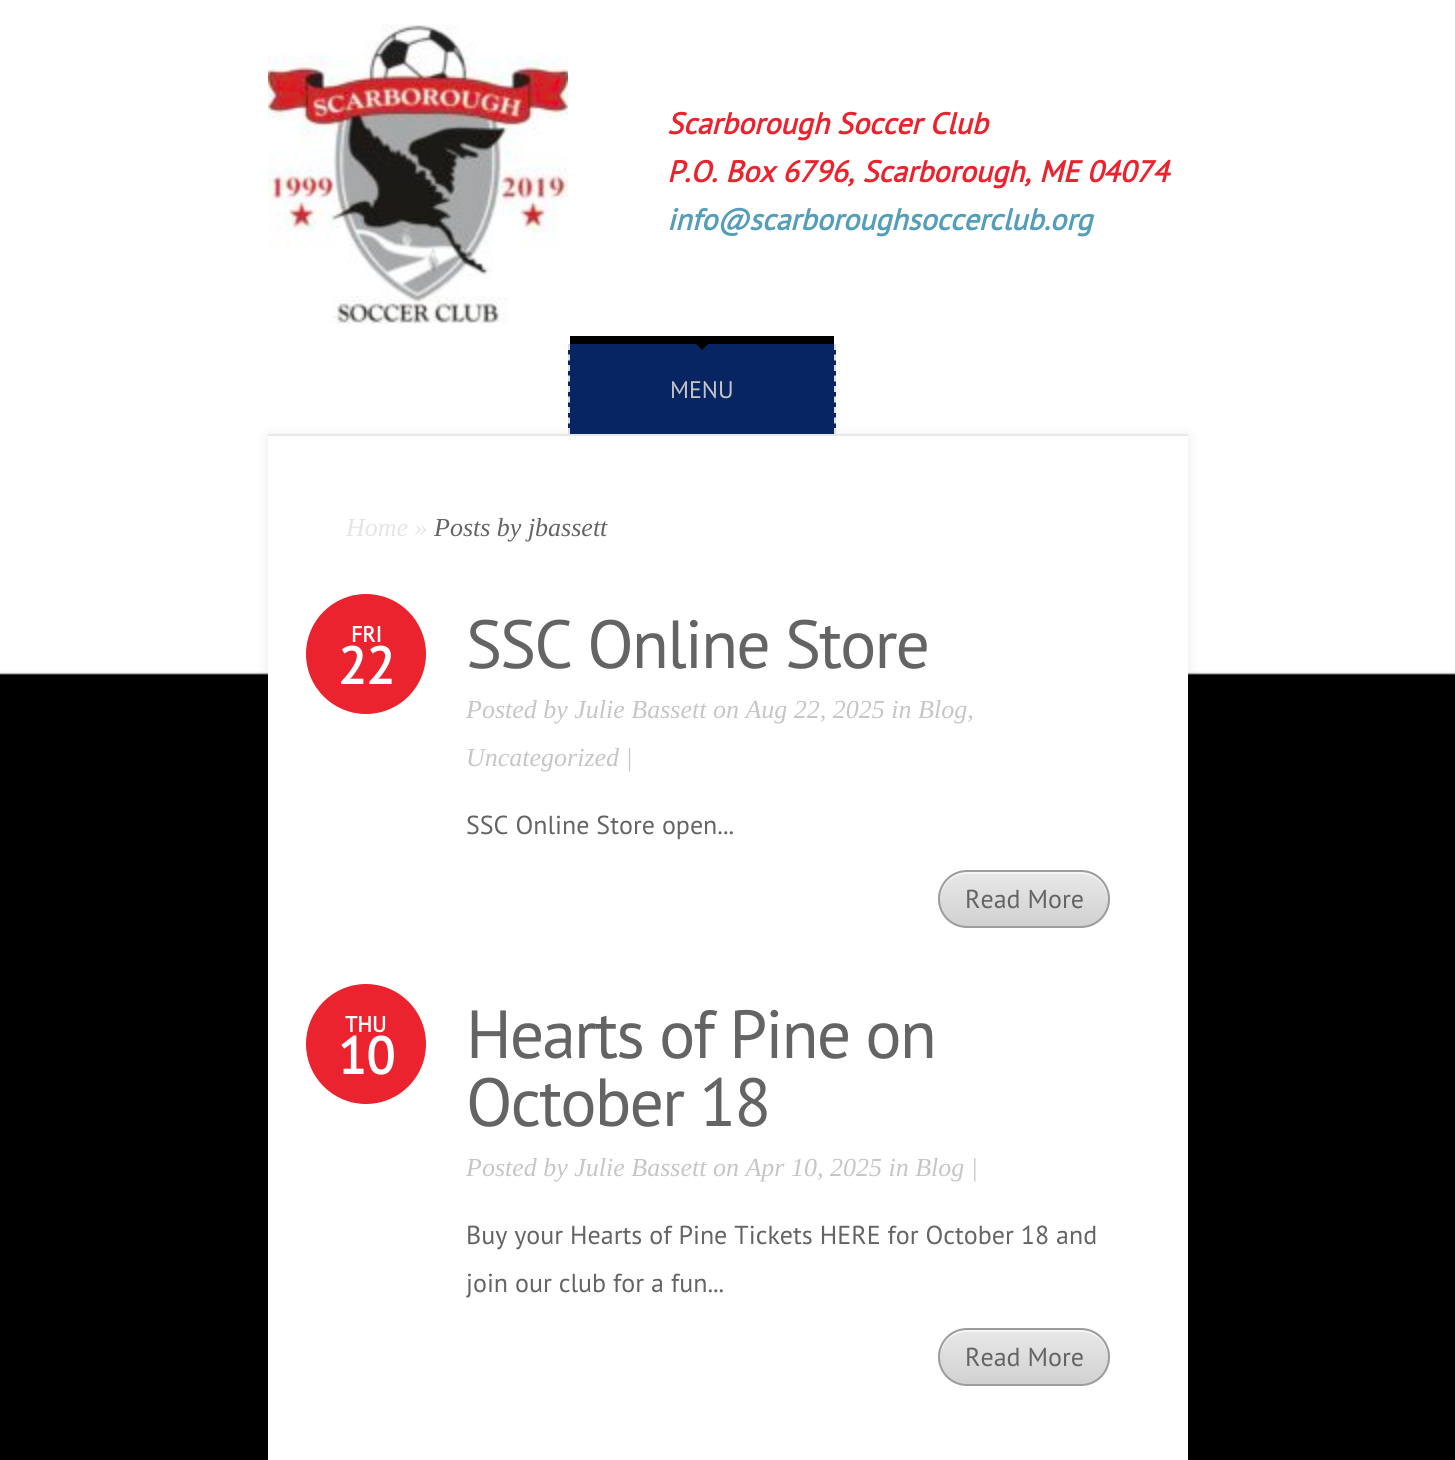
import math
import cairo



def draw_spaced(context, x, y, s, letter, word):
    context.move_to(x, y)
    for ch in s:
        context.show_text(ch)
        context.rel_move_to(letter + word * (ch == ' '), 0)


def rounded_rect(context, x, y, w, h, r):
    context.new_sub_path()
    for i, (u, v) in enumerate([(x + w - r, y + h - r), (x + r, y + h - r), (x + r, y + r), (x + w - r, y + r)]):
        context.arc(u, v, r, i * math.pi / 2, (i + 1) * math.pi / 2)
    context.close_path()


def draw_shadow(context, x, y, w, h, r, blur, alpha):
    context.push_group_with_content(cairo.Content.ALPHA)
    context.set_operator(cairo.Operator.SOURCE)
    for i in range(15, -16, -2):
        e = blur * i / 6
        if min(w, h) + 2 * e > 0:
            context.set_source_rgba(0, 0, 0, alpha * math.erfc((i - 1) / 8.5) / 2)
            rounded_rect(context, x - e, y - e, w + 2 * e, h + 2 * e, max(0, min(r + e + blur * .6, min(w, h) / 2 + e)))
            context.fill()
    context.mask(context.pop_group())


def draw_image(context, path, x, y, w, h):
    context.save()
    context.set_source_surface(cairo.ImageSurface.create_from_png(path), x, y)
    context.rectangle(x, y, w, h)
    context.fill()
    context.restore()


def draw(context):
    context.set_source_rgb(1, 1, 1)
    context.paint()
    draw_image(context, "images/1.png", 0, 0, 1455, 1460)
    draw_image(context, "images/2.png", 268, 24, 300, 300)
    context.set_source_rgb(239 / 255, 239 / 255, 239 / 255)
    context.rectangle(268, 434, 920, 2)
    context.fill()
    context.set_source_rgb(0, 0, 0)
    draw_shadow(context, 268, 436, 920, 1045, 0, 7, 0.08)
    context.set_source_rgb(8 / 255, 37 / 255, 99 / 255)
    context.rectangle(568, 344, 268, 90)
    context.fill()
    context.new_path()
    context.move_to(835, 344)
    context.line_to(835, 434)
    context.set_source_rgb(220 / 255, 220 / 255, 220 / 255)
    context.set_dash([6, 4.5])
    context.stroke()
    context.new_path()
    context.move_to(569, 344)
    context.line_to(569, 434)
    context.stroke()
    context.set_source_rgb(0, 0, 0)
    context.rectangle(570, 336, 264, 8)
    context.fill()
    context.new_path()
    context.move_to(696, 344)
    context.line_to(708, 344)
    context.line_to(702, 350)
    context.close_path()
    context.fill()
    context.set_source_rgb(1, 1, 1)
    context.rectangle(268, 436, 920, 1024)
    context.fill()
    context.set_source_rgb(235 / 255, 35 / 255, 46 / 255)
    context.arc(366, 654, 60, 0, 2 * math.pi)
    context.fill()
    context.save()
    rounded_rect(context, 938, 870, 172, 58, 29)
    context.clip()
    gradient = cairo.LinearGradient(1024, 872, 1024, 926)
    gradient.add_color_stop_rgba(0, 232 / 255, 232 / 255, 232 / 255, 1)
    gradient.add_color_stop_rgba(1, 209 / 255, 209 / 255, 209 / 255, 1)
    context.set_source(gradient)
    context.rectangle(938, 872, 172, 54)
    context.fill()
    context.restore()
    context.set_source_rgb(245 / 255, 245 / 255, 245 / 255)
    context.new_path()
    context.move_to(967, 874)
    context.line_to(1081, 874)
    context.curve_to(1096, 874, 1107, 885, 1108, 900)
    context.line_to(1108, 899)
    context.curve_to(1108, 884, 1096, 872, 1081, 872)
    context.line_to(967, 872)
    context.curve_to(952, 872, 940, 884, 940, 899)
    context.line_to(940, 900)
    context.curve_to(941, 885, 952, 874, 967, 874)
    context.close_path()
    context.fill()
    rounded_rect(context, 939, 871, 170, 56, 28)
    context.set_source_rgb(157 / 255, 157 / 255, 157 / 255)
    context.set_dash([])
    context.stroke()
    context.set_source_rgb(235 / 255, 35 / 255, 46 / 255)
    context.arc(366, 1044, 60, 0, 2 * math.pi)
    context.fill()
    context.save()
    rounded_rect(context, 938, 1328, 172, 58, 29)
    context.clip()
    gradient = cairo.LinearGradient(1024, 1330, 1024, 1384)
    gradient.add_color_stop_rgba(0, 232 / 255, 232 / 255, 232 / 255, 1)
    gradient.add_color_stop_rgba(1, 209 / 255, 209 / 255, 209 / 255, 1)
    context.set_source(gradient)
    context.rectangle(938, 1330, 172, 54)
    context.fill()
    context.restore()
    context.set_source_rgb(245 / 255, 245 / 255, 245 / 255)
    context.new_path()
    context.move_to(967, 1332)
    context.line_to(1081, 1332)
    context.curve_to(1096, 1332, 1107, 1343, 1108, 1358)
    context.line_to(1108, 1357)
    context.curve_to(1108, 1342, 1096, 1330, 1081, 1330)
    context.line_to(967, 1330)
    context.curve_to(952, 1330, 940, 1342, 940, 1357)
    context.line_to(940, 1358)
    context.curve_to(941, 1343, 952, 1332, 967, 1332)
    context.close_path()
    context.fill()
    rounded_rect(context, 939, 1329, 170, 56, 28)
    context.set_source_rgb(157 / 255, 157 / 255, 157 / 255)
    context.stroke()
    context.select_font_face("PT Sans", cairo.FontSlant.ITALIC, cairo.FontWeight.BOLD)
    context.set_font_size(30)
    context.set_source_rgb(235 / 255, 35 / 255, 46 / 255)
    context.move_to(667, 134)
    context.show_text("Scarborough Soccer Club")
    context.move_to(667, 182)
    context.show_text("P.O. Box 6796, Scarborough, ME 04074")
    context.set_source_rgb(84 / 255, 158 / 255, 185 / 255)
    context.move_to(667, 230)
    context.show_text("info@scarboroughsoccerclub.org")
    context.select_font_face("PT Sans")
    context.set_font_size(24)
    context.set_source_rgb(198 / 255, 198 / 255, 198 / 255)
    context.move_to(670, 398)
    context.show_text("MENU")
    context.select_font_face("Liberation Serif", cairo.FontSlant.ITALIC)
    context.set_font_size(26)
    context.set_source_rgb(229 / 255, 229 / 255, 229 / 255)
    context.move_to(346, 536)
    context.show_text("Home »")
    context.set_source_rgb(101 / 255, 100 / 255, 100 / 255)
    context.move_to(434, 536)
    context.show_text("Posts by jbassett")
    context.select_font_face("PT Sans", cairo.FontSlant.NORMAL, cairo.FontWeight.BOLD)
    context.set_font_size(22)
    context.set_source_rgb(1, 1, 1)
    context.move_to(351, 642)
    context.show_text("FRI")
    context.set_font_size(52)
    context.move_to(338, 684)
    context.show_text("22")
    context.select_font_face("PT Sans")
    context.set_font_size(68)
    context.set_source_rgb(101 / 255, 100 / 255, 100 / 255)
    draw_spaced(context, 466, 668, "SSC Online Store", -2, 0)
    context.select_font_face("Liberation Serif", cairo.FontSlant.ITALIC)
    context.set_font_size(26)
    context.set_source_rgb(198 / 255, 198 / 255, 198 / 255)
    context.move_to(466, 718)
    context.show_text("Posted by Julie Bassett on Aug 22, 2025 in Blog,")
    context.move_to(466, 766)
    context.show_text("Uncategorized |")
    context.select_font_face("PT Sans")
    context.set_source_rgb(101 / 255, 100 / 255, 100 / 255)
    context.move_to(466, 834)
    context.show_text("SSC Online Store open...")
    context.move_to(965, 908)
    context.show_text("Read More")
    context.select_font_face("PT Sans", cairo.FontSlant.NORMAL, cairo.FontWeight.BOLD)
    context.set_font_size(22)
    context.set_source_rgb(1, 1, 1)
    context.move_to(345, 1032)
    context.show_text("THU")
    context.set_font_size(52)
    context.move_to(338, 1074)
    context.show_text("10")
    context.select_font_face("PT Sans")
    context.set_font_size(68)
    context.set_source_rgb(101 / 255, 100 / 255, 100 / 255)
    draw_spaced(context, 466, 1058, "Hearts of Pine on", -2, 0)
    draw_spaced(context, 466, 1126, "October 18", -2, 0)
    context.select_font_face("Liberation Serif", cairo.FontSlant.ITALIC)
    context.set_font_size(26)
    context.set_source_rgb(198 / 255, 198 / 255, 198 / 255)
    context.move_to(466, 1176)
    context.show_text("Posted by Julie Bassett on Apr 10, 2025 in Blog |")
    context.select_font_face("PT Sans")
    context.set_source_rgb(101 / 255, 100 / 255, 100 / 255)
    context.move_to(466, 1244)
    context.show_text("Buy your Hearts of Pine Tickets HERE for October 18 and")
    context.move_to(466, 1292)
    context.show_text("join our club for a fun...")
    context.move_to(965, 1366)
    context.show_text("Read More")


surface = cairo.ImageSurface(cairo.Format.RGB24, 1455, 1460)
context = cairo.Context(surface)
options = cairo.FontOptions()
options.set_hint_metrics(cairo.HintMetrics.OFF)
options.set_hint_style(cairo.HintStyle.NONE)
context.set_font_options(options)
context.set_miter_limit(4)
draw(context)
surface.write_to_png("out.png")
